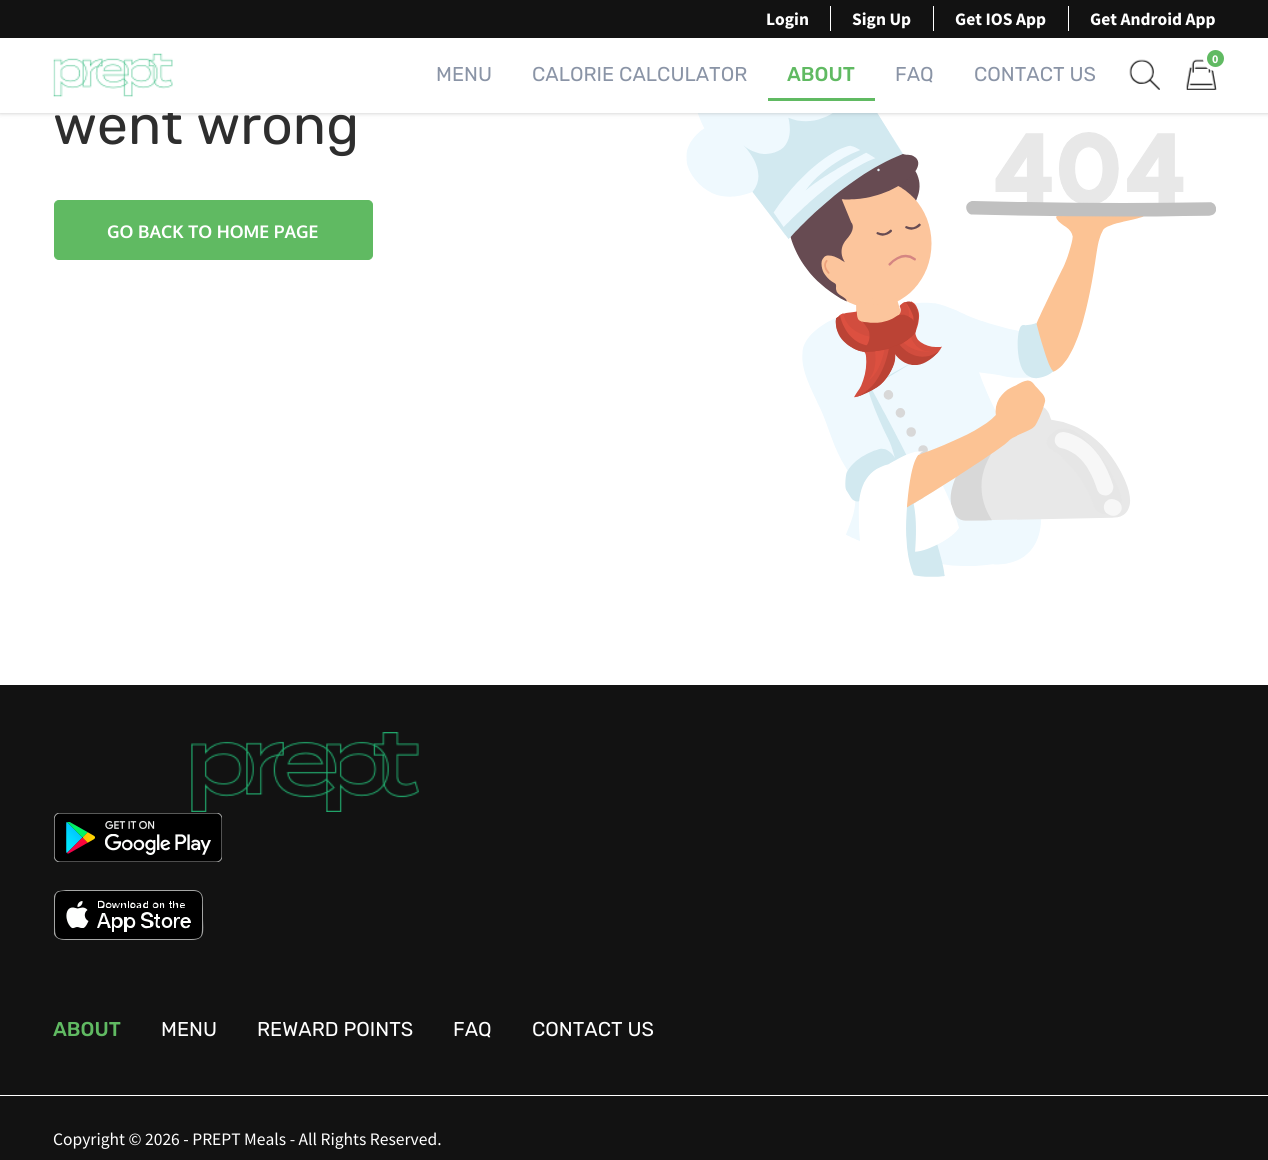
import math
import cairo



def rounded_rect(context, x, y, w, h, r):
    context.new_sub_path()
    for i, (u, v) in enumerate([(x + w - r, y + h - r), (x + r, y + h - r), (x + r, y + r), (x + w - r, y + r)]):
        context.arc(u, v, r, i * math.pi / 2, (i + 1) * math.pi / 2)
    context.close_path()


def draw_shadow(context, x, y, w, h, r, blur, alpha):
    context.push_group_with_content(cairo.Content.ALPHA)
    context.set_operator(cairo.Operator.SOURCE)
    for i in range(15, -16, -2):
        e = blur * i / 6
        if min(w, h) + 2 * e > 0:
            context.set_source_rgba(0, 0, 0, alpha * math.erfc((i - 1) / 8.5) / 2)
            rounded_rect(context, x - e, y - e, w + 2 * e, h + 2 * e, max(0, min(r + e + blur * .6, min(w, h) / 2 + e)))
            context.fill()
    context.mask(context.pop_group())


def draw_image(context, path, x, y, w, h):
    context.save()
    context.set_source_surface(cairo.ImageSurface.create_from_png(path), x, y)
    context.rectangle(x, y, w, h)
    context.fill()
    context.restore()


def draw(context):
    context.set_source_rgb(1, 1, 1)
    context.paint()
    context.set_source_rgb(96 / 255, 186 / 255, 98 / 255)
    rounded_rect(context, 54.5, 200.5, 318, 59, 4.5)
    context.fill_preserve()
    context.set_line_width(1)
    context.stroke()
    draw_image(context, "images/1.png", 686, 113, 530, 464)
    context.set_source_rgb(18 / 255, 18 / 255, 18 / 255)
    draw_shadow(context, 0, -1, 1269, 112, 0, 3, 0.5)
    context.set_source_rgb(18 / 255, 18 / 255, 18 / 255)
    context.rectangle(0, 0, 1268, 38)
    context.fill()
    context.set_source_rgb(1, 1, 1)
    context.rectangle(830, 6, 1, 25)
    context.fill()
    context.rectangle(933, 6, 1, 25)
    context.fill()
    context.rectangle(1068, 6, 1, 25)
    context.fill()
    context.set_source_rgb(18 / 255, 18 / 255, 18 / 255)
    context.rectangle(0, 685, 1268, 475)
    context.fill()
    draw_image(context, "images/5.png", 191, 732, 228, 80)
    draw_image(context, "images/6.png", 54, 813, 168, 49)
    context.save()
    context.rectangle(54, 890, 150, 50)
    context.clip()
    context.set_source_rgb(165 / 255, 166 / 255, 165 / 255)
    context.new_path()
    context.move_to(192, 890)
    context.line_to(66, 890)
    context.line_to(59, 891)
    context.curve_to(57, 891, 56, 893, 55, 894)
    context.curve_to(53, 897, 54, 902, 54, 905)
    context.line_to(54, 934)
    context.curve_to(56, 939, 61, 940, 66, 940)
    context.line_to(191, 940)
    context.curve_to(206, 940, 203, 931, 203, 919)
    context.line_to(203, 900)
    context.curve_to(203, 893, 199, 890, 193, 890)
    context.close_path()
    context.fill()
    context.restore()
    context.set_source_rgb(0, 0, 0)
    context.new_path()
    context.move_to(193, 891)
    context.curve_to(204, 891, 202, 899, 202, 909)
    context.line_to(202, 927)
    context.curve_to(202, 937, 201, 939, 191, 939)
    context.line_to(64, 939)
    context.curve_to(55, 939, 55, 934, 55, 927)
    context.line_to(55, 903)
    context.curve_to(55, 895, 55, 891, 64, 891)
    context.close_path()
    context.fill()
    context.set_source_rgb(254 / 255, 1, 254 / 255)
    context.set_fill_rule(cairo.FillRule.EVEN_ODD)
    context.new_path()
    context.move_to(105, 913)
    context.line_to(111, 928)
    context.line_to(108, 928)
    context.line_to(107, 924)
    context.line_to(101, 924)
    context.line_to(99, 928)
    context.line_to(97, 928)
    context.line_to(102, 913)
    context.close_path()
    context.move_to(147, 912)
    context.curve_to(145, 912, 143, 913, 142, 914)
    context.line_to(141, 917)
    context.curve_to(141, 923, 151, 920, 150, 924)
    context.line_to(150, 926)
    context.line_to(146, 926)
    context.curve_to(145, 926, 144, 925, 143, 924)
    context.line_to(141, 924)
    context.curve_to(141, 927, 145, 929, 148, 928)
    context.curve_to(150, 928, 152, 927, 153, 926)
    context.curve_to(156, 919, 146, 920, 144, 918)
    context.curve_to(142, 915, 150, 912, 150, 917)
    context.line_to(153, 917)
    context.curve_to(153, 914, 150, 912, 147, 912)
    context.close_path()
    context.move_to(158, 914)
    context.line_to(156, 914)
    context.line_to(156, 917)
    context.line_to(154, 917)
    context.line_to(154, 919)
    context.line_to(156, 919)
    context.curve_to(156, 923, 154, 929, 160, 928)
    context.line_to(160, 926)
    context.curve_to(156, 927, 158, 921, 158, 919)
    context.line_to(160, 919)
    context.line_to(160, 917)
    context.line_to(158, 917)
    context.close_path()
    context.move_to(104, 915)
    context.line_to(106, 922)
    context.line_to(101, 922)
    context.close_path()
    context.move_to(167, 917)
    context.curve_to(160, 917, 160, 928, 167, 928)
    context.curve_to(174, 928, 174, 917, 167, 917)
    context.close_path()
    context.move_to(186, 917)
    context.curve_to(178, 917, 179, 930, 187, 928)
    context.curve_to(189, 928, 190, 926, 190, 925)
    context.line_to(188, 925)
    context.curve_to(187, 928, 183, 926, 183, 923)
    context.line_to(191, 923)
    context.curve_to(191, 920, 189, 917, 186, 917)
    context.close_path()
    context.move_to(118, 917)
    context.curve_to(116, 917, 115, 917, 114, 919)
    context.line_to(114, 917)
    context.line_to(112, 917)
    context.line_to(112, 932)
    context.line_to(114, 932)
    context.line_to(114, 926)
    context.curve_to(115, 927, 116, 928, 117, 928)
    context.curve_to(124, 929, 125, 917, 118, 917)
    context.close_path()
    context.move_to(130, 917)
    context.curve_to(129, 917, 128, 917, 127, 919)
    context.line_to(127, 917)
    context.line_to(124, 917)
    context.line_to(124, 932)
    context.line_to(127, 932)
    context.line_to(127, 926)
    context.curve_to(127, 927, 129, 928, 130, 928)
    context.curve_to(137, 929, 137, 917, 130, 917)
    context.close_path()
    context.move_to(179, 917)
    context.curve_to(178, 917, 177, 917, 176, 919)
    context.line_to(176, 917)
    context.line_to(174, 917)
    context.line_to(174, 928)
    context.line_to(176, 928)
    context.curve_to(176, 926, 175, 917, 180, 919)
    context.line_to(180, 917)
    context.close_path()
    context.move_to(186, 919)
    context.curve_to(187, 919, 188, 920, 188, 921)
    context.line_to(183, 921)
    context.curve_to(183, 920, 184, 919, 186, 919)
    context.close_path()
    context.move_to(167, 919)
    context.curve_to(171, 919, 171, 926, 167, 926)
    context.curve_to(163, 926, 163, 919, 167, 919)
    context.close_path()
    context.move_to(117, 919)
    context.curve_to(121, 919, 121, 926, 117, 926)
    context.curve_to(113, 926, 113, 919, 117, 919)
    context.close_path()
    context.move_to(130, 919)
    context.curve_to(134, 919, 134, 926, 130, 926)
    context.curve_to(126, 926, 126, 919, 130, 919)
    context.close_path()
    context.fill()
    context.new_path()
    context.move_to(104, 902)
    context.curve_to(105, 903, 105, 908, 103, 908)
    context.line_to(98, 908)
    context.line_to(98, 901)
    context.curve_to(100, 901, 102, 900, 104, 902)
    context.close_path()
    context.move_to(110, 903)
    context.curve_to(112, 904, 112, 907, 110, 908)
    context.line_to(107, 908)
    context.curve_to(104, 906, 107, 901, 110, 903)
    context.close_path()
    context.move_to(113, 903)
    context.line_to(114, 907)
    context.line_to(115, 903)
    context.line_to(116, 903)
    context.line_to(118, 907)
    context.line_to(119, 903)
    context.line_to(120, 903)
    context.line_to(118, 908)
    context.line_to(117, 908)
    context.line_to(116, 904)
    context.line_to(115, 908)
    context.line_to(113, 908)
    context.line_to(112, 903)
    context.close_path()
    context.move_to(124, 903)
    context.curve_to(127, 902, 126, 907, 126, 908)
    context.line_to(125, 908)
    context.curve_to(125, 902, 122, 902, 122, 908)
    context.line_to(121, 908)
    context.line_to(121, 903)
    context.line_to(122, 903)
    context.line_to(122, 904)
    context.close_path()
    context.move_to(128, 908)
    context.line_to(128, 901)
    context.line_to(129, 901)
    context.line_to(129, 908)
    context.close_path()
    context.move_to(134, 903)
    context.curve_to(136, 904, 136, 907, 134, 908)
    context.line_to(131, 908)
    context.curve_to(129, 906, 131, 901, 134, 903)
    context.close_path()
    context.move_to(139, 903)
    context.curve_to(142, 903, 141, 906, 141, 908)
    context.line_to(140, 908)
    context.line_to(137, 908)
    context.curve_to(135, 906, 139, 905, 140, 905)
    context.curve_to(140, 904, 138, 903, 138, 904)
    context.line_to(137, 904)
    context.curve_to(137, 903, 138, 903, 139, 903)
    context.close_path()
    context.move_to(147, 908)
    context.line_to(144, 908)
    context.curve_to(141, 906, 145, 900, 147, 904)
    context.line_to(147, 901)
    context.line_to(148, 901)
    context.line_to(148, 908)
    context.line_to(147, 908)
    context.line_to(147, 907)
    context.close_path()
    context.move_to(157, 903)
    context.curve_to(159, 904, 159, 907, 157, 908)
    context.line_to(154, 908)
    context.curve_to(151, 906, 154, 901, 157, 903)
    context.close_path()
    context.move_to(162, 903)
    context.curve_to(165, 902, 164, 907, 164, 908)
    context.line_to(163, 908)
    context.curve_to(163, 902, 161, 902, 161, 908)
    context.line_to(160, 908)
    context.line_to(160, 903)
    context.line_to(161, 903)
    context.line_to(161, 904)
    context.close_path()
    context.move_to(171, 901)
    context.line_to(171, 903)
    context.line_to(172, 903)
    context.line_to(172, 904)
    context.line_to(171, 904)
    context.curve_to(171, 905, 170, 908, 172, 907)
    context.line_to(172, 908)
    context.line_to(170, 908)
    context.line_to(170, 904)
    context.line_to(169, 904)
    context.line_to(169, 903)
    context.line_to(170, 903)
    context.line_to(170, 901)
    context.close_path()
    context.move_to(174, 908)
    context.line_to(173, 908)
    context.line_to(173, 901)
    context.line_to(174, 901)
    context.line_to(174, 904)
    context.line_to(176, 903)
    context.curve_to(179, 902, 178, 906, 178, 908)
    context.line_to(177, 908)
    context.curve_to(177, 902, 174, 902, 174, 908)
    context.close_path()
    context.move_to(182, 903)
    context.curve_to(184, 903, 185, 904, 185, 906)
    context.line_to(181, 906)
    context.curve_to(181, 907, 183, 908, 184, 907)
    context.line_to(185, 907)
    context.line_to(184, 908)
    context.line_to(181, 908)
    context.curve_to(179, 907, 180, 903, 182, 903)
    context.close_path()
    context.move_to(101, 902)
    context.curve_to(104, 902, 105, 907, 99, 907)
    context.line_to(99, 902)
    context.close_path()
    context.move_to(182, 904)
    context.curve_to(183, 904, 184, 904, 184, 905)
    context.line_to(181, 905)
    context.curve_to(181, 904, 181, 904, 182, 904)
    context.close_path()
    context.move_to(109, 904)
    context.curve_to(111, 904, 111, 907, 109, 907)
    context.curve_to(106, 907, 106, 904, 109, 904)
    context.close_path()
    context.move_to(133, 904)
    context.curve_to(135, 904, 135, 907, 133, 907)
    context.curve_to(131, 907, 131, 904, 133, 904)
    context.close_path()
    context.move_to(155, 904)
    context.curve_to(158, 904, 158, 907, 155, 907)
    context.curve_to(153, 907, 153, 904, 155, 904)
    context.close_path()
    context.move_to(146, 904)
    context.curve_to(148, 904, 148, 907, 146, 907)
    context.curve_to(144, 907, 144, 904, 146, 904)
    context.close_path()
    context.move_to(140, 906)
    context.curve_to(140, 910, 136, 906, 139, 906)
    context.close_path()
    context.fill()
    context.new_path()
    context.move_to(82.5, 907.5)
    context.curve_to(84.5, 907.5, 86.5, 908.5, 87.5, 910)
    context.curve_to(83.5, 912.5, 84, 919, 88.5, 921)
    context.curve_to(87.5, 923, 86, 927, 83.5, 928)
    context.line_to(81.5, 928)
    context.curve_to(80, 928, 79, 927, 77, 927)
    context.curve_to(75.5, 927, 74, 928.5, 72, 928)
    context.curve_to(69.5, 926.5, 67.5, 922.5, 67, 920)
    context.curve_to(65.5, 915, 66.5, 907, 73.5, 907.5)
    context.line_to(77.5, 908.5)
    context.close_path()
    context.move_to(82.5, 901)
    context.curve_to(83, 904, 80.5, 907, 77.5, 907)
    context.curve_to(77, 904, 79.5, 901, 82.5, 901)
    context.close_path()
    context.fill()
    context.set_source_rgb(1, 1, 1)
    context.rectangle(0, 1095, 1268, 1)
    context.fill()
    context.select_font_face("Rubik Light")
    context.set_font_size(55)
    context.set_source_rgb(46 / 255, 46 / 255, 46 / 255)
    context.move_to(53, 144)
    context.show_text("went wrong")
    context.select_font_face("Oxygen", cairo.FontSlant.NORMAL, cairo.FontWeight.BOLD)
    context.set_font_size(17.5)
    context.set_source_rgb(1, 1, 1)
    context.move_to(107, 238)
    context.show_text("GO BACK TO HOME PAGE")
    context.select_font_face("Source Sans Pro", cairo.FontSlant.NORMAL, cairo.FontWeight.BOLD)
    context.move_to(766, 25)
    context.show_text("Login")
    context.move_to(852, 25)
    context.show_text("Sign Up")
    context.move_to(955, 25)
    context.show_text("Get IOS App")
    context.move_to(1090, 25)
    context.show_text("Get Android App")
    context.rectangle(0, 38, 1268, 75)
    context.fill()
    draw_image(context, "images/2.png", 53, 53, 120, 44)
    draw_image(context, "images/3.png", 1186, 59, 31, 31)
    context.set_source_rgb(96 / 255, 186 / 255, 98 / 255)
    context.arc(1215.5, 58.5, 10.5, 0, 2 * math.pi)
    context.fill_preserve()
    context.set_source_rgb(1, 1, 1)
    context.set_line_width(4)
    context.stroke()
    context.set_font_size(12)
    context.move_to(1212, 63)
    context.show_text("0")
    context.select_font_face("Source Sans Pro")
    context.set_font_size(20)
    context.set_source_rgb(224 / 255, 239 / 255, 245 / 255)
    context.move_to(876, 171)
    context.show_text(".")
    context.select_font_face("Rubik Light")
    context.set_source_rgb(138 / 255, 148 / 255, 166 / 255)
    context.move_to(436, 81)
    context.show_text("MENU")
    context.move_to(532, 81)
    context.show_text("CALORIE CALCULATOR")
    context.select_font_face("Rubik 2 Light")
    context.set_source_rgb(96 / 255, 186 / 255, 98 / 255)
    context.move_to(787, 81)
    context.show_text("ABOUT")
    context.rectangle(768, 98, 107, 3)
    context.fill()
    context.select_font_face("Rubik Light")
    context.set_source_rgb(138 / 255, 148 / 255, 166 / 255)
    context.move_to(895, 81)
    context.show_text("FAQ")
    context.move_to(974, 81)
    context.show_text("CONTACT US")
    draw_image(context, "images/4.png", 1129, 59, 31, 31)
    context.select_font_face("Rubik 2 Light")
    context.set_source_rgb(96 / 255, 186 / 255, 98 / 255)
    context.move_to(53, 1036)
    context.show_text("ABOUT")
    context.select_font_face("Rubik Light")
    context.set_source_rgb(1, 1, 1)
    context.move_to(161, 1036)
    context.show_text("MENU")
    context.move_to(257, 1036)
    context.show_text("REWARD POINTS")
    context.move_to(453, 1036)
    context.show_text("FAQ")
    context.move_to(532, 1036)
    context.show_text("CONTACT US")
    context.select_font_face("Source Sans Pro")
    context.set_font_size(17.5)
    context.move_to(53, 1145)
    context.show_text("Copyright © 2026 - PREPT Meals - All Rights Reserved.")


surface = cairo.ImageSurface(cairo.Format.RGB24, 1268, 1160)
context = cairo.Context(surface)
options = cairo.FontOptions()
options.set_hint_metrics(cairo.HintMetrics.OFF)
options.set_hint_style(cairo.HintStyle.NONE)
context.set_font_options(options)
context.set_miter_limit(4)
draw(context)
surface.write_to_png("out.png")
